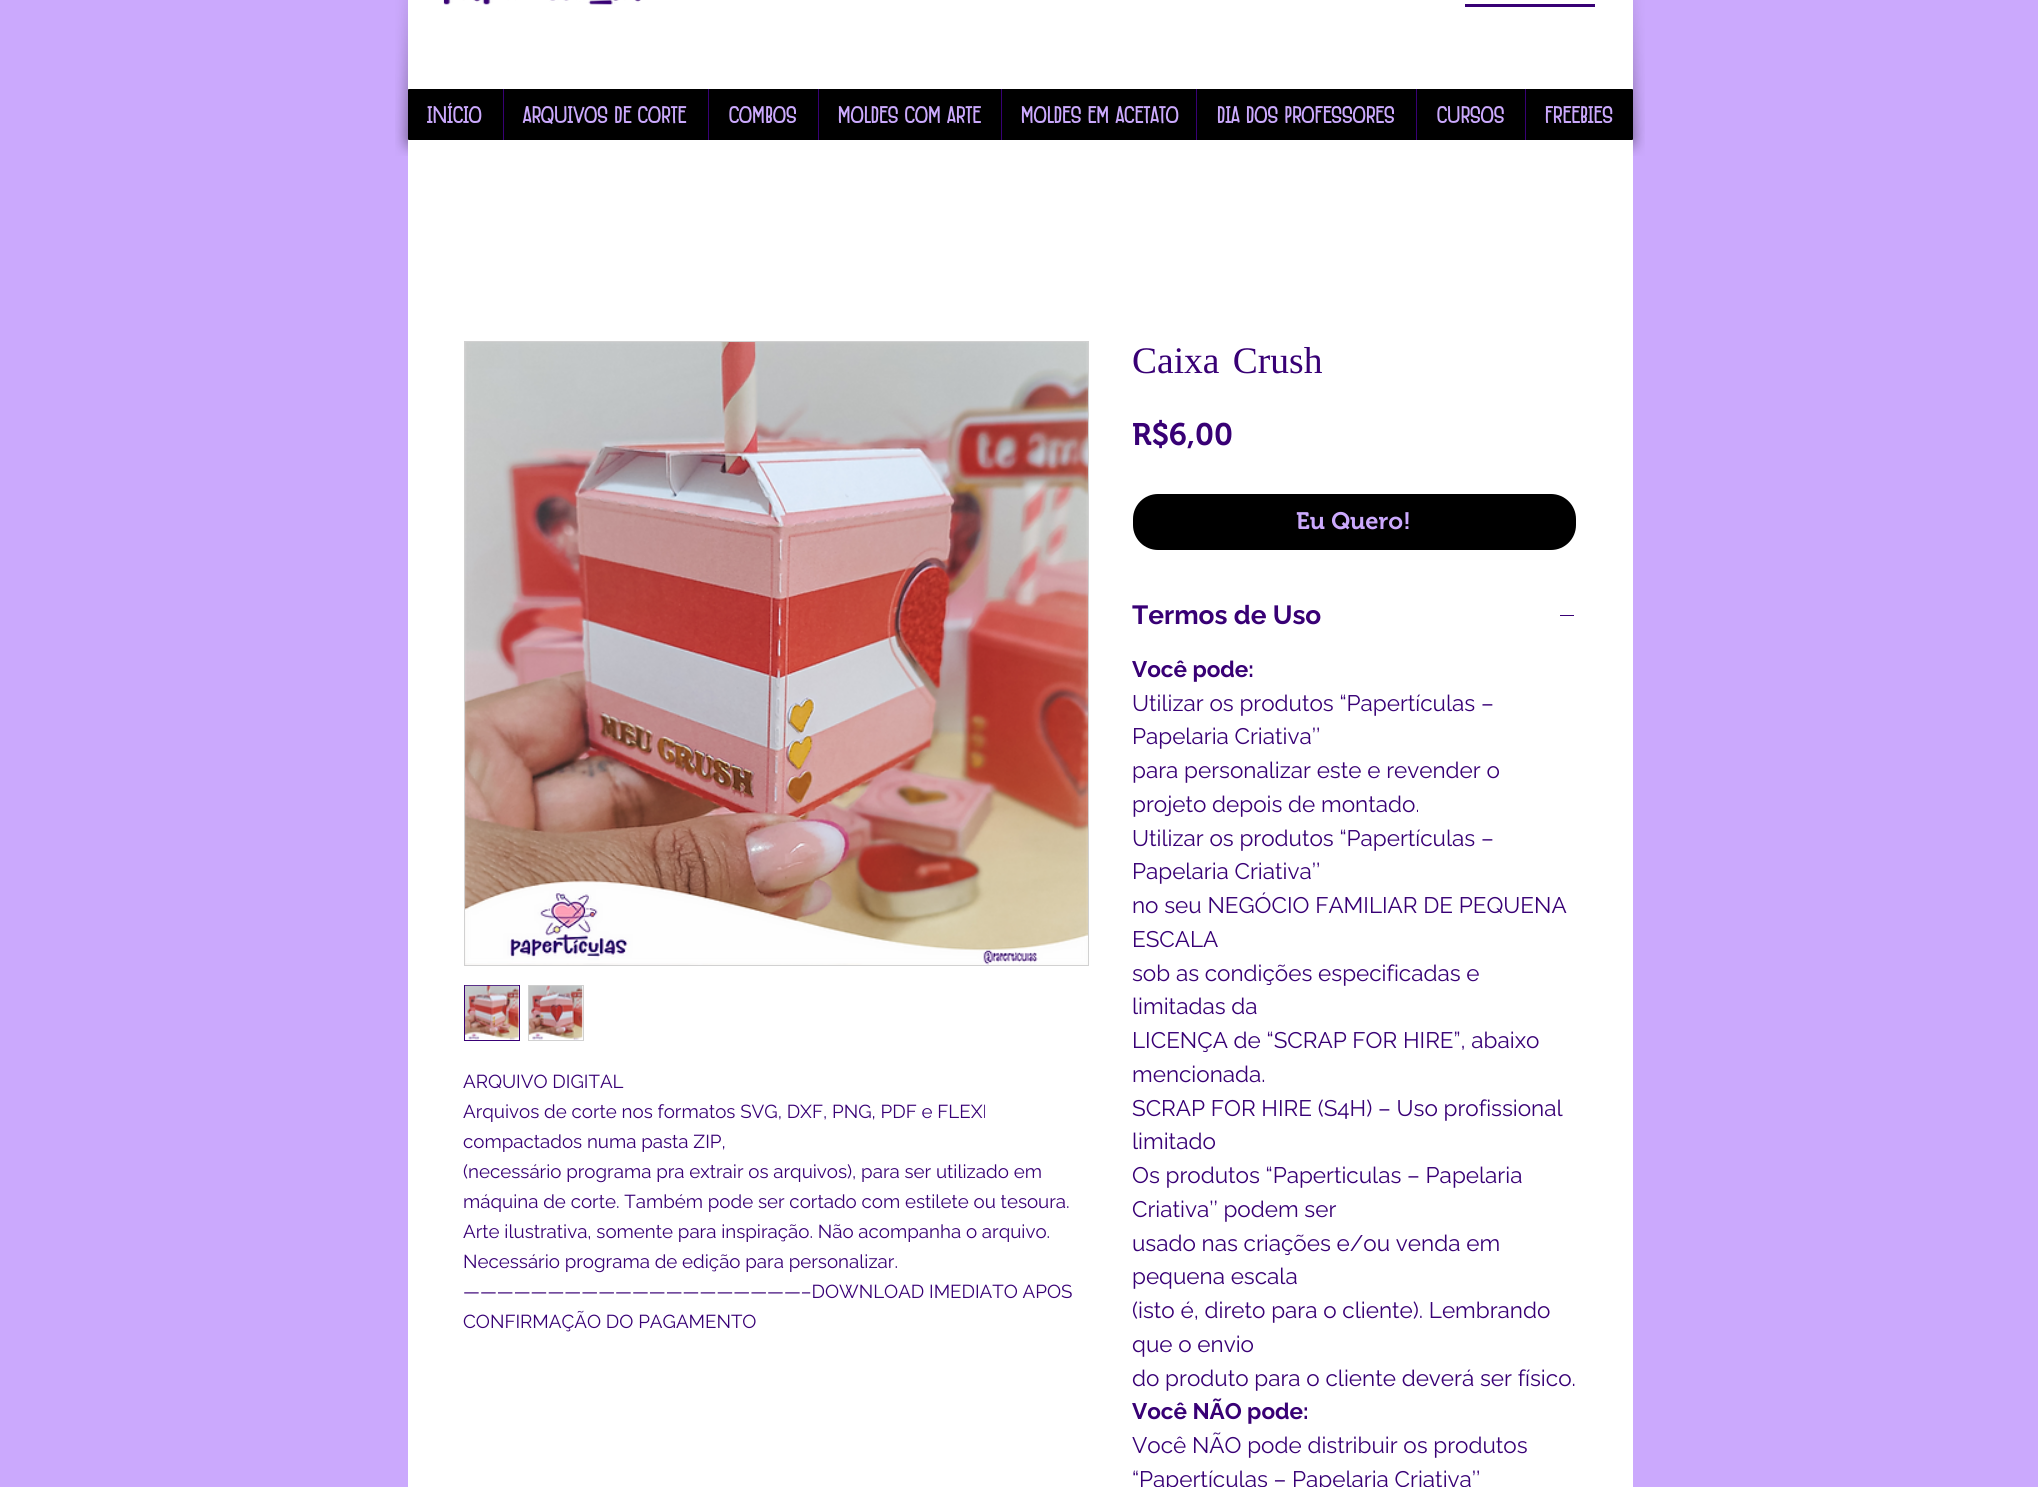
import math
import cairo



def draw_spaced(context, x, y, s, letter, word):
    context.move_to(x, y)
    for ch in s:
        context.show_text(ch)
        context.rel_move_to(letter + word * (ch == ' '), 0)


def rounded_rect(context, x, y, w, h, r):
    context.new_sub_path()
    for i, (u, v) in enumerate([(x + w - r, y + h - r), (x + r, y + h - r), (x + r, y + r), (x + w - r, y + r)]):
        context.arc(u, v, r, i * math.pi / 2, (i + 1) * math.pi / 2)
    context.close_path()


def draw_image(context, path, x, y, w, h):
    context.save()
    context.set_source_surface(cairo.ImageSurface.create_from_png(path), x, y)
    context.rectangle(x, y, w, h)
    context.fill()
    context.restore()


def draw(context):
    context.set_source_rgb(203 / 255, 169 / 255, 253 / 255)
    context.paint()
    draw_image(context, "images/1.png", 395, 0, 13, 156)
    context.set_source_rgb(1, 1, 1)
    context.rectangle(408, 0, 1225, 1487)
    context.fill()
    draw_image(context, "images/2.png", 1633, 0, 12, 156)
    draw_image(context, "images/3.png", 443, 0, 198, 5)
    context.set_source_rgb(56 / 255, 0, 117 / 255)
    context.rectangle(1465, 4, 130, 3)
    context.fill()
    context.set_source_rgb(0, 0, 0)
    rounded_rect(context, 408, 89, 1225, 51, 1)
    context.fill()
    context.set_source_rgb(56 / 255, 0, 117 / 255)
    context.rectangle(503, 89, 1, 51)
    context.fill()
    context.rectangle(708, 89, 1, 51)
    context.fill()
    context.rectangle(818, 89, 1, 51)
    context.fill()
    context.rectangle(1001, 89, 1, 51)
    context.fill()
    context.rectangle(1196, 89, 1, 51)
    context.fill()
    context.rectangle(1416, 89, 1, 51)
    context.fill()
    context.rectangle(1525, 89, 1, 51)
    context.fill()
    context.rectangle(464.5, 341.5, 624, 624)
    context.set_source_rgb(209 / 255, 209 / 255, 209 / 255)
    context.set_line_width(1)
    context.stroke()
    draw_image(context, "images/4.png", 465, 342, 623, 623)
    context.rectangle(464.5, 985.5, 55, 55)
    context.set_source_rgb(56 / 255, 0, 117 / 255)
    context.stroke()
    draw_image(context, "images/5.png", 465, 985, 54, 55)
    context.rectangle(528.5, 985.5, 55, 55)
    context.set_source_rgb(209 / 255, 209 / 255, 209 / 255)
    context.stroke()
    draw_image(context, "images/6.png", 528, 985, 55, 55)
    context.set_source_rgb(0, 0, 0)
    rounded_rect(context, 1133, 494, 443, 56, 25)
    context.fill()
    context.set_source_rgb(56 / 255, 0, 117 / 255)
    context.rectangle(1560, 615, 14, 1)
    context.fill()
    context.select_font_face("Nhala")
    context.set_font_size(25)
    context.set_source_rgb(203 / 255, 169 / 255, 253 / 255)
    context.move_to(427, 123)
    context.show_text("INÍCIO")
    context.move_to(523, 123)
    context.show_text("ARQUIVOS DE CORTE")
    context.move_to(729, 123)
    context.show_text("COMBOS")
    context.move_to(838, 123)
    context.show_text("MOLDES COM ARTE")
    context.move_to(1021, 123)
    context.show_text("MOLDES EM ACETATO")
    context.move_to(1217, 123)
    context.show_text("DIA DOS PROFESSORES")
    context.move_to(1437, 123)
    context.show_text("CURSOS")
    context.move_to(1545, 123)
    context.show_text("FREEBIES")
    context.select_font_face("Raleway")
    context.set_font_size(18.75)
    context.set_source_rgb(56 / 255, 0, 117 / 255)
    context.move_to(463, 1088)
    context.show_text("ARQUIVO DIGITAL")
    context.move_to(463, 1118)
    context.show_text("Arquivos de corte nos formatos SVG, DXF, PNG, PDF e FLEXI")
    context.move_to(463, 1148)
    context.show_text("compactados numa pasta ZIP,")
    context.move_to(463, 1178)
    context.show_text("(necessário programa pra extrair os arquivos), para ser utilizado em")
    context.move_to(463, 1208)
    context.show_text("máquina de corte. Também pode ser cortado com estilete ou tesoura.")
    context.move_to(463, 1238)
    context.show_text("Arte ilustrativa, somente para inspiração. Não acompanha o arquivo.")
    context.move_to(463, 1268)
    context.show_text("Necessário programa de edição para personalizar.")
    context.move_to(463, 1298)
    context.show_text("————————————————————–DOWNLOAD IMEDIATO APOS")
    context.move_to(463, 1328)
    context.show_text("CONFIRMAÇÃO DO PAGAMENTO")
    context.select_font_face("Liberation Serif")
    context.set_font_size(37.5)
    draw_spaced(context, 1132, 373, "Caixa Crush", 0, 4)
    context.select_font_face("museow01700 SemiBold")
    context.set_font_size(31)
    context.move_to(1132, 445)
    context.show_text("R$6,00")
    context.set_font_size(23.75)
    context.set_source_rgb(203 / 255, 169 / 255, 253 / 255)
    context.move_to(1296, 529)
    context.show_text("Eu Quero!")
    context.select_font_face("Raleway", cairo.FontSlant.NORMAL, cairo.FontWeight.BOLD)
    context.set_font_size(26.25)
    context.set_source_rgb(56 / 255, 0, 117 / 255)
    context.move_to(1132, 624)
    context.show_text("Termos de Uso")
    context.set_font_size(22.5)
    context.move_to(1132, 677)
    context.show_text("Você pode:")
    context.select_font_face("Raleway")
    context.move_to(1132, 711)
    context.show_text("Utilizar os produtos “Papertículas –")
    context.move_to(1132, 744)
    context.show_text("Papelaria Criativa’’")
    context.move_to(1132, 778)
    context.show_text("para personalizar este e revender o")
    context.move_to(1132, 812)
    context.show_text("projeto depois de montado.")
    context.move_to(1132, 846)
    context.show_text("Utilizar os produtos “Papertículas –")
    context.move_to(1132, 879)
    context.show_text("Papelaria Criativa’’")
    context.move_to(1132, 913)
    context.show_text("no seu NEGÓCIO FAMILIAR DE PEQUENA")
    context.move_to(1132, 947)
    context.show_text("ESCALA")
    context.move_to(1132, 981)
    context.show_text("sob as condições especificadas e")
    context.move_to(1132, 1014)
    context.show_text("limitadas da")
    context.move_to(1132, 1048)
    context.show_text("LICENÇA de “SCRAP FOR HIRE”, abaixo")
    context.move_to(1132, 1082)
    context.show_text("mencionada.")
    context.move_to(1132, 1116)
    context.show_text("SCRAP FOR HIRE (S4H) – Uso profissional")
    context.move_to(1132, 1149)
    context.show_text("limitado")
    context.move_to(1132, 1183)
    context.show_text("Os produtos “Paperticulas – Papelaria")
    context.move_to(1132, 1217)
    context.show_text("Criativa’’ podem ser")
    context.move_to(1132, 1251)
    context.show_text("usado nas criações e/ou venda em")
    context.move_to(1132, 1284)
    context.show_text("pequena escala")
    context.move_to(1132, 1318)
    context.show_text("(isto é, direto para o cliente). Lembrando")
    context.move_to(1132, 1352)
    context.show_text("que o envio")
    context.move_to(1132, 1386)
    context.show_text("do produto para o cliente deverá ser físico.")
    context.select_font_face("Raleway", cairo.FontSlant.NORMAL, cairo.FontWeight.BOLD)
    context.move_to(1132, 1419)
    context.show_text("Você NÃO pode:")
    context.select_font_face("Raleway")
    context.move_to(1132, 1453)
    context.show_text("Você NÃO pode distribuir os produtos")
    context.move_to(1132, 1487)
    context.show_text("“Papertículas – Papelaria Criativa’’")


surface = cairo.ImageSurface(cairo.Format.RGB24, 2038, 1487)
context = cairo.Context(surface)
options = cairo.FontOptions()
options.set_hint_metrics(cairo.HintMetrics.OFF)
options.set_hint_style(cairo.HintStyle.NONE)
context.set_font_options(options)
context.set_miter_limit(4)
draw(context)
surface.write_to_png("out.png")
